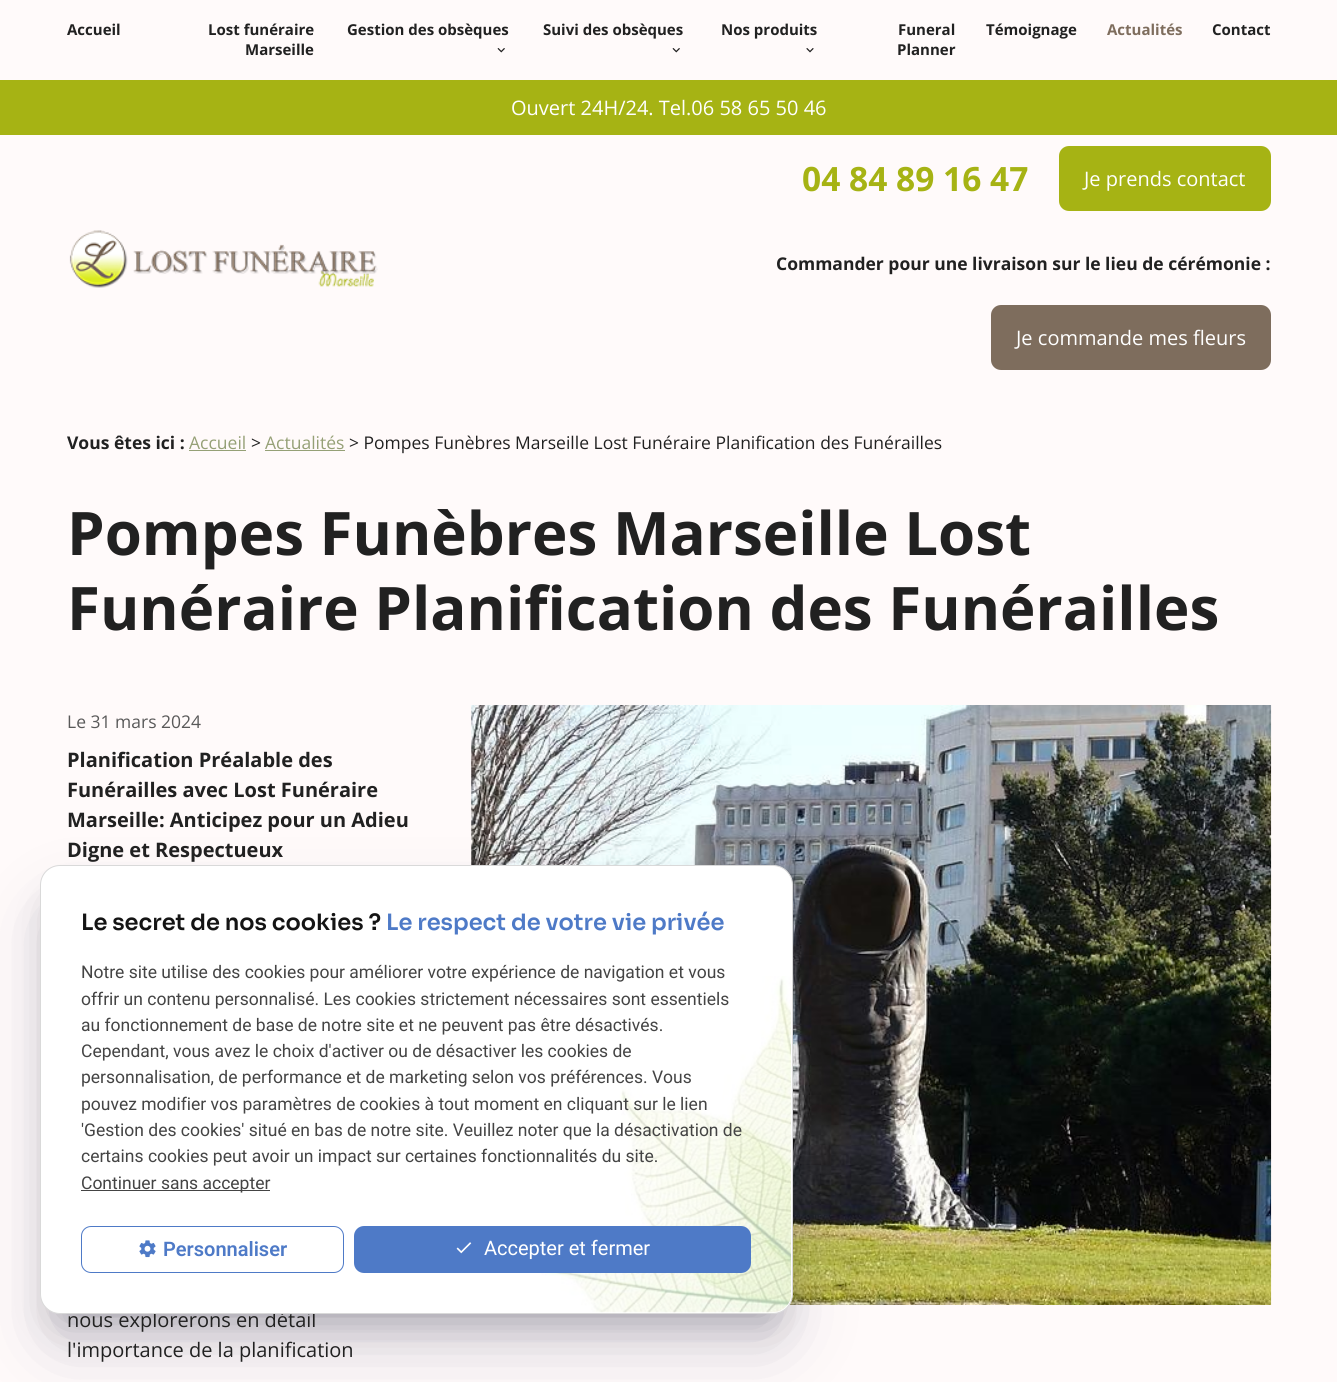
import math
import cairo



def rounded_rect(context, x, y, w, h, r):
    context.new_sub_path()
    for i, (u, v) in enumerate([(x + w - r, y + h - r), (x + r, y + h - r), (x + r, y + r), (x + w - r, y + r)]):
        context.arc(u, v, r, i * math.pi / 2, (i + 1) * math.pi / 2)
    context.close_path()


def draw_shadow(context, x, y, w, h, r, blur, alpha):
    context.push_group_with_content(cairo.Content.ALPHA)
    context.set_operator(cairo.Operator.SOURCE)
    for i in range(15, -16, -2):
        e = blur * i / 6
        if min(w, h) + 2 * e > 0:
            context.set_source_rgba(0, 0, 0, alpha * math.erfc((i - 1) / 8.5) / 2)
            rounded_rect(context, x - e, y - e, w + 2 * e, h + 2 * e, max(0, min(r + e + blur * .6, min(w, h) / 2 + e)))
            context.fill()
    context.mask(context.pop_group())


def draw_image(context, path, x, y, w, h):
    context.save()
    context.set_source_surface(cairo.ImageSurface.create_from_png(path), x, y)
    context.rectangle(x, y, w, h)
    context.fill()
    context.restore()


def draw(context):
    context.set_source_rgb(1, 250 / 255, 250 / 255)
    context.paint()
    draw_image(context, "images/1.png", 497, 48, 8, 5)
    draw_image(context, "images/1.png", 672, 48, 8, 5)
    draw_image(context, "images/2.png", 806, 48, 8, 5)
    context.set_source_rgb(166 / 255, 179 / 255, 20 / 255)
    context.rectangle(0, 80, 1337, 55)
    context.fill()
    draw_image(context, "images/3.png", 69, 230, 309, 58)
    rounded_rect(context, 1059, 146, 212, 65, 10)
    context.fill()
    context.set_source_rgb(126 / 255, 109 / 255, 93 / 255)
    rounded_rect(context, 991, 305, 280, 65, 10)
    context.fill()
    context.set_source_rgb(149 / 255, 160 / 255, 118 / 255)
    context.rectangle(189, 450, 57, 1)
    context.fill()
    context.rectangle(265, 450, 80, 1)
    context.fill()
    draw_image(context, "images/4.png", 471, 705, 801, 600)
    context.set_source_rgb(0, 0, 0)
    draw_shadow(context, 63, 910, 707, 404, 0, 22.5, 0.3)
    context.set_source_rgb(50 / 255, 50 / 255, 93 / 255)
    draw_shadow(context, 55, 918, 723, 418, 5, 37.5, 0.25)
    context.select_font_face("Open Sans", cairo.FontSlant.NORMAL, cairo.FontWeight.BOLD)
    context.set_font_size(15)
    context.set_source_rgb(33 / 255, 33 / 255, 33 / 255)
    context.move_to(67, 35)
    context.show_text("Accueil")
    context.move_to(208, 35)
    context.show_text("Lost funéraire")
    context.move_to(245, 55)
    context.show_text("Marseille")
    context.move_to(347, 35)
    context.show_text("Gestion des obsèques")
    context.move_to(543, 35)
    context.show_text("Suivi des obsèques")
    context.move_to(721, 35)
    context.show_text("Nos produits")
    context.move_to(898, 35)
    context.show_text("Funeral")
    context.move_to(897, 55)
    context.show_text("Planner")
    context.move_to(986, 35)
    context.show_text("Témoignage")
    context.set_source_rgb(126 / 255, 109 / 255, 93 / 255)
    context.move_to(1107, 35)
    context.show_text("Actualités")
    context.set_source_rgb(33 / 255, 33 / 255, 33 / 255)
    context.move_to(1212, 35)
    context.show_text("Contact")
    context.select_font_face("Open Sans")
    context.set_font_size(20)
    context.set_source_rgb(1, 1, 1)
    context.move_to(511, 115)
    context.show_text("Ouvert 24H/24. Tel.06 58 65 50 46")
    context.select_font_face("Open Sans", cairo.FontSlant.NORMAL, cairo.FontWeight.BOLD)
    context.set_font_size(33.5)
    context.set_source_rgb(166 / 255, 179 / 255, 20 / 255)
    context.move_to(802, 191)
    context.show_text("04 84 89 16 47")
    context.select_font_face("Open Sans")
    context.set_font_size(20)
    context.set_source_rgb(1, 1, 1)
    context.move_to(1084, 186)
    context.show_text("Je prends contact")
    context.select_font_face("Open Sans", cairo.FontSlant.NORMAL, cairo.FontWeight.BOLD)
    context.set_font_size(17.5)
    context.set_source_rgb(33 / 255, 33 / 255, 33 / 255)
    context.move_to(776, 270)
    context.show_text("Commander pour une livraison sur le lieu de cérémonie :")
    context.select_font_face("Open Sans")
    context.set_font_size(20)
    context.set_source_rgb(1, 1, 1)
    context.move_to(1016, 345)
    context.show_text("Je commande mes fleurs")
    context.select_font_face("Open Sans", cairo.FontSlant.NORMAL, cairo.FontWeight.BOLD)
    context.set_font_size(17.5)
    context.set_source_rgb(33 / 255, 33 / 255, 33 / 255)
    context.move_to(67, 449)
    context.show_text("Vous êtes ici :")
    context.select_font_face("Open Sans")
    context.set_source_rgb(149 / 255, 160 / 255, 118 / 255)
    context.move_to(189, 449)
    context.show_text("Accueil")
    context.set_source_rgb(33 / 255, 33 / 255, 33 / 255)
    context.move_to(251, 449)
    context.show_text(">")
    context.set_source_rgb(149 / 255, 160 / 255, 118 / 255)
    context.move_to(265, 449)
    context.show_text("Actualités")
    context.set_source_rgb(33 / 255, 33 / 255, 33 / 255)
    context.move_to(349, 449)
    context.show_text("> Pompes Funèbres Marseille Lost Funéraire Planification des Funérailles")
    context.select_font_face("Open Sans", cairo.FontSlant.NORMAL, cairo.FontWeight.BOLD)
    context.set_font_size(60)
    context.move_to(67, 555)
    context.show_text("Pompes Funèbres Marseille Lost")
    context.move_to(67, 630)
    context.show_text("Funéraire Planification des Funérailles")
    context.select_font_face("Open Sans")
    context.set_font_size(17.5)
    context.set_source_rgb(89 / 255, 89 / 255, 89 / 255)
    context.move_to(67, 728)
    context.show_text("Le 31 mars 2024")
    context.select_font_face("Open Sans", cairo.FontSlant.NORMAL, cairo.FontWeight.BOLD)
    context.set_font_size(20)
    context.set_source_rgb(33 / 255, 33 / 255, 33 / 255)
    context.move_to(67, 767)
    context.show_text("Planification Préalable des")
    context.move_to(67, 797)
    context.show_text("Funérailles avec Lost Funéraire")
    context.move_to(67, 827)
    context.show_text("Marseille: Anticipez pour un Adieu")
    context.move_to(67, 857)
    context.show_text("Digne et Respectueux")
    context.select_font_face("Open Sans")
    context.move_to(67, 1327)
    context.show_text("nous explorerons en détail")
    context.move_to(67, 1357)
    context.show_text("l'importance de la planification")
    context.set_source_rgb(1, 1, 1)
    rounded_rect(context, 40.5, 865.5, 752, 448, 19.5)
    context.fill_preserve()
    context.set_source_rgb(217 / 255, 217 / 255, 217 / 255)
    context.set_line_width(1)
    context.stroke()
    context.select_font_face("Sora SemiBold")
    context.set_font_size(22.5)
    context.set_source_rgb(20 / 255, 20 / 255, 20 / 255)
    context.move_to(81, 930)
    context.show_text("Le secret de nos cookies ?")
    context.set_source_rgb(78 / 255, 122 / 255, 199 / 255)
    context.move_to(386, 930)
    context.show_text("Le respect de votre vie privée")
    context.set_source_rgb(68 / 255, 68 / 255, 68 / 255)
    context.rectangle(81, 1190, 189, 1)
    context.fill()
    context.select_font_face("Roboto")
    context.set_font_size(17.5)
    context.move_to(81, 1189)
    context.show_text("Continuer sans accepter")
    rounded_rect(context, 81.5, 1226.5, 262, 46, 9.5)
    context.set_source_rgb(78 / 255, 122 / 255, 199 / 255)
    context.stroke()
    draw_image(context, "images/5.png", 139, 1240, 17, 18)
    context.select_font_face("Roboto SemiBold")
    context.set_font_size(20)
    context.move_to(163, 1256)
    context.show_text("Personnaliser")
    draw_image(context, "images/7.png", 541, 976, 250, 337)
    rounded_rect(context, 354, 1226, 397, 47, 10)
    context.fill()
    context.select_font_face("Roboto")
    context.set_source_rgb(1, 1, 1)
    context.move_to(484, 1255)
    context.show_text("Accepter et fermer")
    draw_image(context, "images/6.png", 456, 1242, 16, 12)
    context.set_font_size(17.5)
    context.set_source_rgb(68 / 255, 68 / 255, 68 / 255)
    context.move_to(81, 1162)
    context.show_text("certains cookies peut avoir un impact sur certaines fonctionnalités du site.")
    context.move_to(81, 1136)
    context.show_text("'Gestion des cookies' situé en bas de notre site. Veuillez noter que la désactivation de")
    context.move_to(81, 1110)
    context.show_text("pouvez modifier vos paramètres de cookies à tout moment en cliquant sur le lien")
    context.move_to(81, 1083)
    context.show_text("personnalisation, de performance et de marketing selon vos préférences. Vous")
    context.move_to(81, 1057)
    context.show_text("Cependant, vous avez le choix d'activer ou de désactiver les cookies de")
    context.move_to(81, 1031)
    context.show_text("au fonctionnement de base de notre site et ne peuvent pas être désactivés.")
    context.move_to(81, 1005)
    context.show_text("offrir un contenu personnalisé. Les cookies strictement nécessaires sont essentiels")
    context.move_to(81, 978)
    context.show_text("Notre site utilise des cookies pour améliorer votre expérience de navigation et vous")


surface = cairo.ImageSurface(cairo.Format.RGB24, 1337, 1382)
context = cairo.Context(surface)
options = cairo.FontOptions()
options.set_hint_metrics(cairo.HintMetrics.OFF)
options.set_hint_style(cairo.HintStyle.NONE)
context.set_font_options(options)
context.set_miter_limit(4)
draw(context)
surface.write_to_png("out.png")
